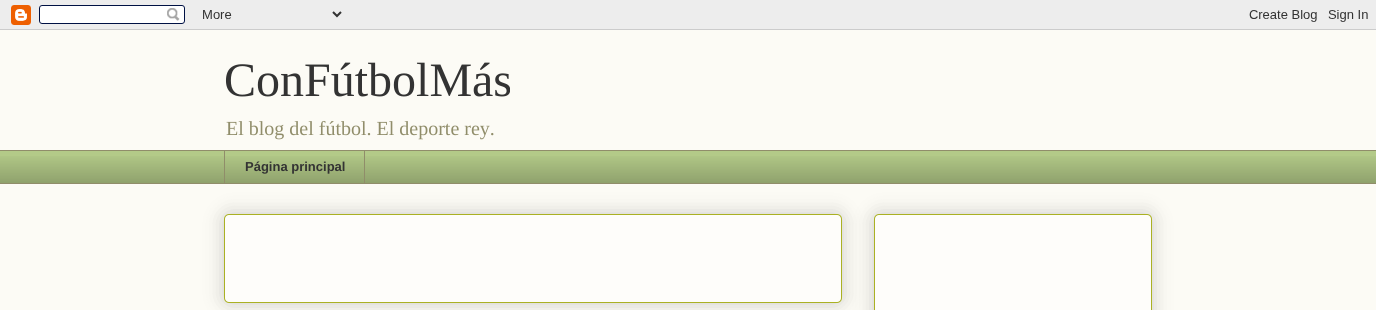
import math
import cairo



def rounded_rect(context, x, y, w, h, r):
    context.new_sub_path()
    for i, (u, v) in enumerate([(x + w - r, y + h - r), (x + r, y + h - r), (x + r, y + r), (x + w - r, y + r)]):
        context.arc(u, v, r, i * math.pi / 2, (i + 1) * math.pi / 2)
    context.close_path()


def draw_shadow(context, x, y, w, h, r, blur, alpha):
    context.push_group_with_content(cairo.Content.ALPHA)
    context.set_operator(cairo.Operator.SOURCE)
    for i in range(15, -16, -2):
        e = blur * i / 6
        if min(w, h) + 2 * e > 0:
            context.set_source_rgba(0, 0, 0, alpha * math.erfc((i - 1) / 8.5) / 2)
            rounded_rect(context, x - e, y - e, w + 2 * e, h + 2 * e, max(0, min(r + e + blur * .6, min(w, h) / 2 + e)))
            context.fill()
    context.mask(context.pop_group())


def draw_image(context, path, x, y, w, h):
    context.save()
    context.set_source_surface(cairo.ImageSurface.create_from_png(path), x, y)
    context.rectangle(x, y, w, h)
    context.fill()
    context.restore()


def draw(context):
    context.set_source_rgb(252 / 255, 251 / 255, 245 / 255)
    context.paint()
    draw_image(context, "images/1.png", 0, 0, 1376, 30)
    context.set_source_rgb(179 / 255, 202 / 255, 136 / 255)
    context.rectangle(0, 151, 1376, 32)
    context.fill()
    draw_image(context, "images/2.png", 0, 156, 1376, 27)
    context.set_source_rgb(144 / 255, 141 / 255, 106 / 255)
    context.rectangle(0, 150, 1376, 1)
    context.fill()
    context.rectangle(224.5, 150.5, 140, 33)
    context.set_line_width(1)
    context.stroke()
    context.rectangle(0, 183, 1376, 1)
    context.fill()
    context.set_source_rgb(0, 0, 0)
    draw_shadow(context, 224, 214, 618, 89, 5, 10, 0.2)
    context.set_source_rgb(254 / 255, 253 / 255, 250 / 255)
    rounded_rect(context, 224.5, 214.5, 617, 88, 4.5)
    context.fill_preserve()
    context.set_source_rgb(170 / 255, 177 / 255, 35 / 255)
    context.stroke()
    context.set_source_rgb(0, 0, 0)
    draw_shadow(context, 874, 214, 278, 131, 5, 10, 0.2)
    context.set_source_rgb(254 / 255, 253 / 255, 250 / 255)
    rounded_rect(context, 874.5, 214.5, 277, 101, 4.5)
    context.fill_preserve()
    context.set_source_rgb(170 / 255, 177 / 255, 35 / 255)
    context.stroke()
    context.select_font_face("Liberation Serif")
    context.set_font_size(48)
    context.set_source_rgb(51 / 255, 51 / 255, 51 / 255)
    context.move_to(224, 96)
    context.show_text("ConFútbolMás")
    context.set_font_size(20)
    context.set_source_rgb(144 / 255, 141 / 255, 106 / 255)
    context.move_to(226, 135)
    context.show_text("El blog del fútbol. El deporte rey.")
    context.select_font_face("Liberation Sans", cairo.FontSlant.NORMAL, cairo.FontWeight.BOLD)
    context.set_font_size(13)
    context.set_source_rgb(51 / 255, 51 / 255, 51 / 255)
    context.move_to(245, 171)
    context.show_text("Página principal")


surface = cairo.ImageSurface(cairo.Format.RGB24, 1376, 310)
context = cairo.Context(surface)
options = cairo.FontOptions()
options.set_hint_metrics(cairo.HintMetrics.OFF)
options.set_hint_style(cairo.HintStyle.NONE)
context.set_font_options(options)
context.set_miter_limit(4)
draw(context)
surface.write_to_png("out.png")
